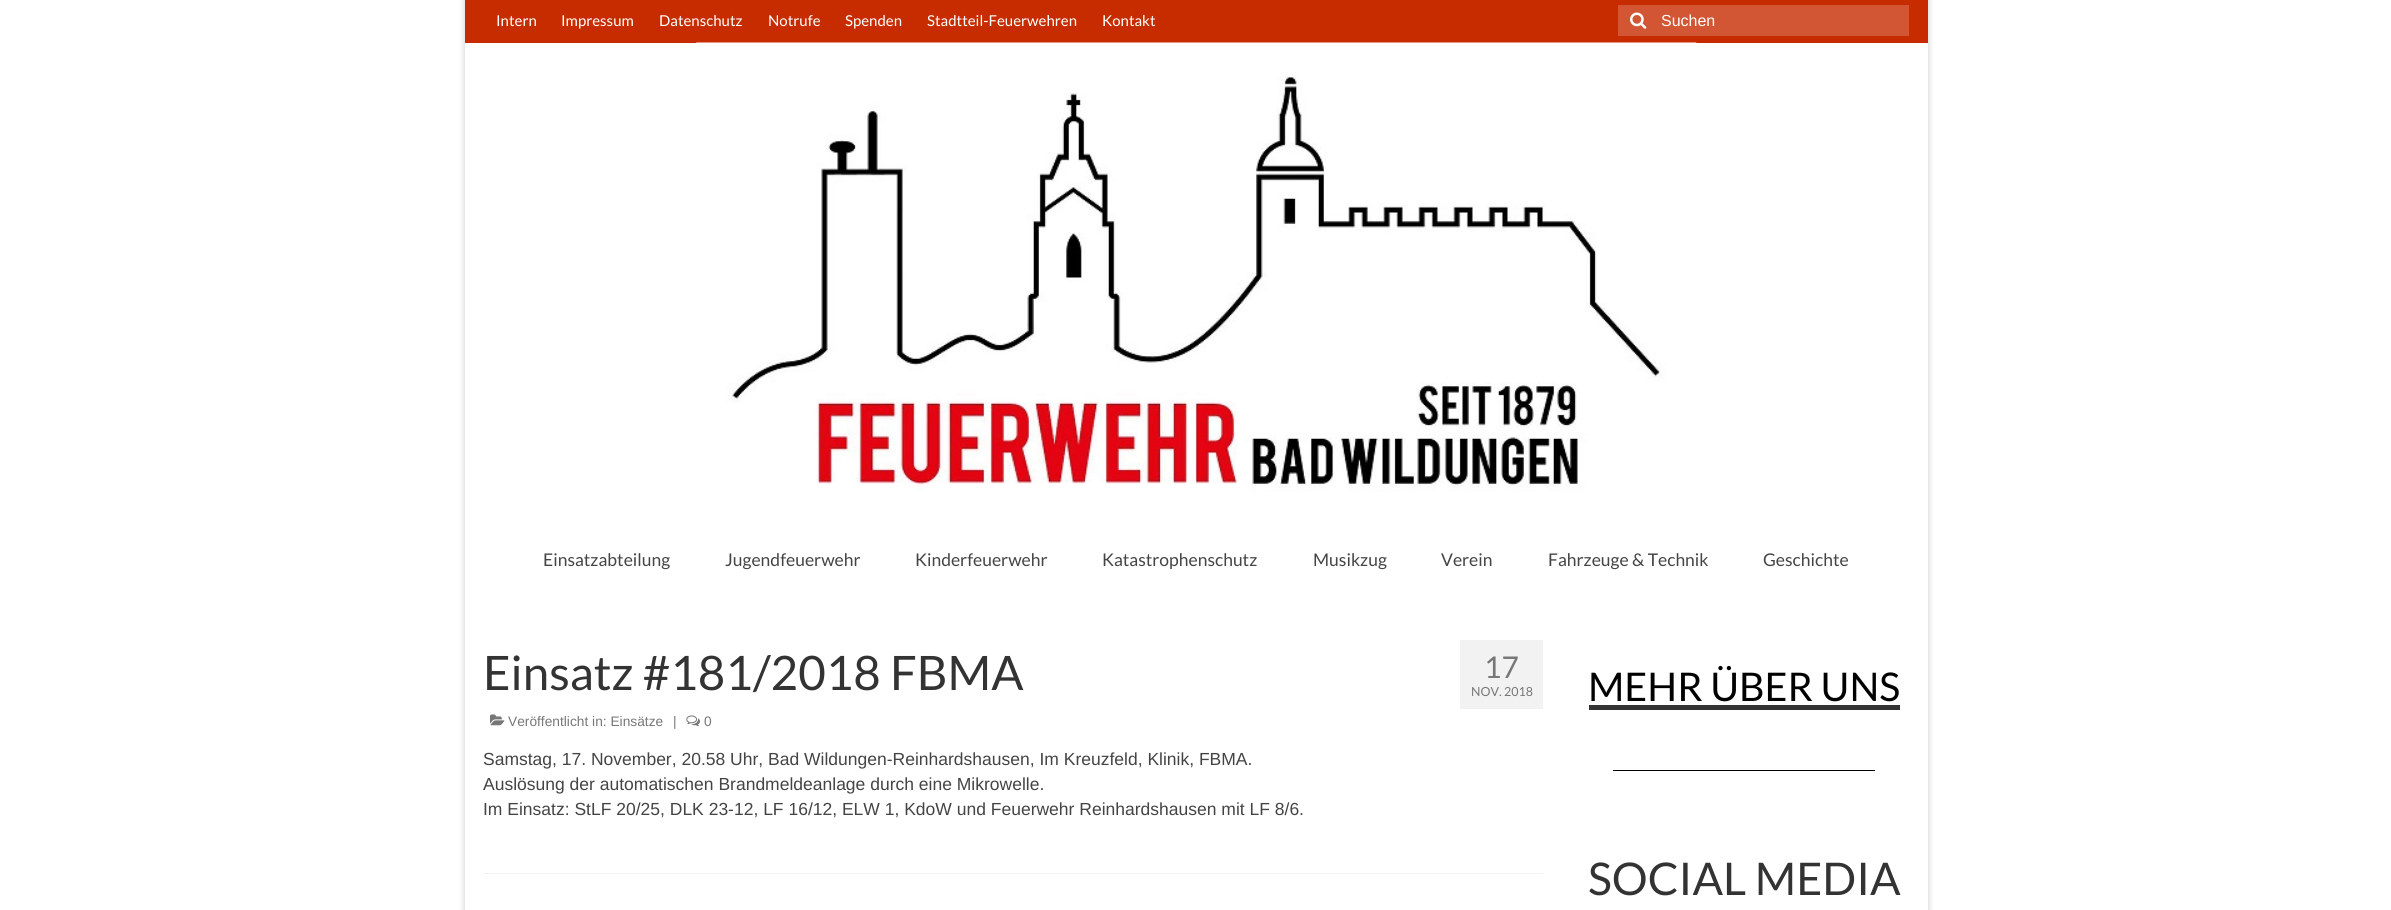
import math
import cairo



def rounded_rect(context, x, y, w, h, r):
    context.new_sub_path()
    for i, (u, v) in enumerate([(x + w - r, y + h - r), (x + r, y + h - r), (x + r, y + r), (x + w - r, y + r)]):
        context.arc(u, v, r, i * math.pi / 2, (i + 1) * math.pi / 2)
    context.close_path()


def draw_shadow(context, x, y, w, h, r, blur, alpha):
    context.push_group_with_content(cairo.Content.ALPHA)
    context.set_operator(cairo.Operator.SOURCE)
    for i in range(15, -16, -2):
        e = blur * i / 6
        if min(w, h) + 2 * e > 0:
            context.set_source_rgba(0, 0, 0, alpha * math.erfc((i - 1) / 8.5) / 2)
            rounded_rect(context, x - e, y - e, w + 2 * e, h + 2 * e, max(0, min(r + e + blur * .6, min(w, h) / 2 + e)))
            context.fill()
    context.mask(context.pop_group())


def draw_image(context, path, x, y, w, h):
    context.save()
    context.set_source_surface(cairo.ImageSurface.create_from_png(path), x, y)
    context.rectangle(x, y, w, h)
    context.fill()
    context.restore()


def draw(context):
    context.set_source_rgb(1, 1, 1)
    context.paint()
    context.set_source_rgb(0, 0, 0)
    draw_shadow(context, 464, -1, 1465, 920, 0, 3, 0.16)
    context.set_source_rgb(1, 1, 1)
    context.rectangle(465, 43, 1463, 867)
    context.fill()
    context.set_source_rgb(199 / 255, 44 / 255, 0)
    context.rectangle(465, 0, 1463, 43)
    context.fill()
    context.set_source_rgb(210 / 255, 86 / 255, 51 / 255)
    context.rectangle(1618, 5, 291, 31)
    context.fill()
    draw_image(context, "images/1.png", 1630, 12, 17, 17)
    draw_image(context, "images/2.png", 696, 42, 1001, 450)
    draw_image(context, "images/3.png", 490, 714, 15, 12)
    draw_image(context, "images/4.png", 686, 715, 14, 12)
    context.set_source_rgb(242 / 255, 242 / 255, 242 / 255)
    context.rectangle(1460, 640, 83, 69)
    context.fill()
    context.rectangle(484, 873, 1059, 1)
    context.fill()
    context.set_source_rgb(51 / 255, 51 / 255, 51 / 255)
    context.rectangle(1589, 705, 311, 5)
    context.fill()
    context.set_source_rgb(0, 0, 0)
    context.rectangle(1613, 770, 262, 1)
    context.fill()
    context.select_font_face("Lato")
    context.set_font_size(15)
    context.set_source_rgb(1, 1, 1)
    context.move_to(496, 26)
    context.show_text("Intern")
    context.move_to(561, 26)
    context.show_text("Impressum")
    context.move_to(659, 26)
    context.show_text("Datenschutz")
    context.move_to(768, 26)
    context.show_text("Notrufe")
    context.move_to(845, 26)
    context.show_text("Spenden")
    context.move_to(927, 26)
    context.show_text("Stadtteil-Feuerwehren")
    context.move_to(1102, 26)
    context.show_text("Kontakt")
    context.select_font_face("Liberation Sans")
    context.set_font_size(16)
    context.move_to(1661, 26)
    context.show_text("Suchen")
    context.select_font_face("Lato")
    context.set_font_size(17.5)
    context.set_source_rgb(68 / 255, 68 / 255, 68 / 255)
    context.move_to(543, 566)
    context.show_text("Einsatzabteilung")
    context.move_to(725, 566)
    context.show_text("Jugendfeuerwehr")
    context.move_to(915, 566)
    context.show_text("Kinderfeuerwehr")
    context.move_to(1102, 566)
    context.show_text("Katastrophenschutz")
    context.move_to(1313, 566)
    context.show_text("Musikzug")
    context.move_to(1441, 566)
    context.show_text("Verein")
    context.move_to(1548, 566)
    context.show_text("Fahrzeuge & Technik")
    context.move_to(1763, 566)
    context.show_text("Geschichte")
    context.set_font_size(47.5)
    context.set_source_rgb(51 / 255, 51 / 255, 51 / 255)
    context.move_to(483, 690)
    context.show_text("Einsatz #181/2018 FBMA")
    context.select_font_face("Liberation Sans")
    context.set_font_size(13.75)
    context.set_source_rgb(119 / 255, 119 / 255, 119 / 255)
    context.move_to(508, 726)
    context.show_text("Veröffentlicht in: Einsätze")
    context.move_to(673, 726)
    context.show_text("|")
    context.move_to(704, 726)
    context.show_text("0")
    context.select_font_face("Lato")
    context.set_font_size(30)
    context.move_to(1484, 678)
    context.show_text("17")
    context.set_font_size(12.5)
    context.move_to(1471, 696)
    context.show_text("NOV. 2018")
    context.select_font_face("Liberation Sans")
    context.set_font_size(17.5)
    context.set_source_rgb(68 / 255, 68 / 255, 68 / 255)
    context.move_to(483, 765)
    context.show_text("Samstag, 17. November, 20.58 Uhr, Bad Wildungen-Reinhardshausen, Im Kreuzfeld, Klinik, FBMA.")
    context.move_to(483, 790)
    context.show_text("Auslösung der automatischen Brandmeldeanlage durch eine Mikrowelle.")
    context.move_to(483, 815)
    context.show_text("Im Einsatz: StLF 20/25, DLK 23-12, LF 16/12, ELW 1, KdoW und Feuerwehr Reinhardshausen mit LF 8/6.")
    context.select_font_face("Lato")
    context.set_font_size(39.5)
    context.set_source_rgb(0, 0, 0)
    context.move_to(1588, 701)
    context.show_text("MEHR ÜBER UNS")
    context.set_font_size(45)
    context.set_source_rgb(51 / 255, 51 / 255, 51 / 255)
    context.move_to(1588, 895)
    context.show_text("SOCIAL MEDIA")


surface = cairo.ImageSurface(cairo.Format.RGB24, 2391, 910)
context = cairo.Context(surface)
options = cairo.FontOptions()
options.set_hint_metrics(cairo.HintMetrics.OFF)
options.set_hint_style(cairo.HintStyle.NONE)
context.set_font_options(options)
context.set_miter_limit(4)
draw(context)
surface.write_to_png("out.png")
